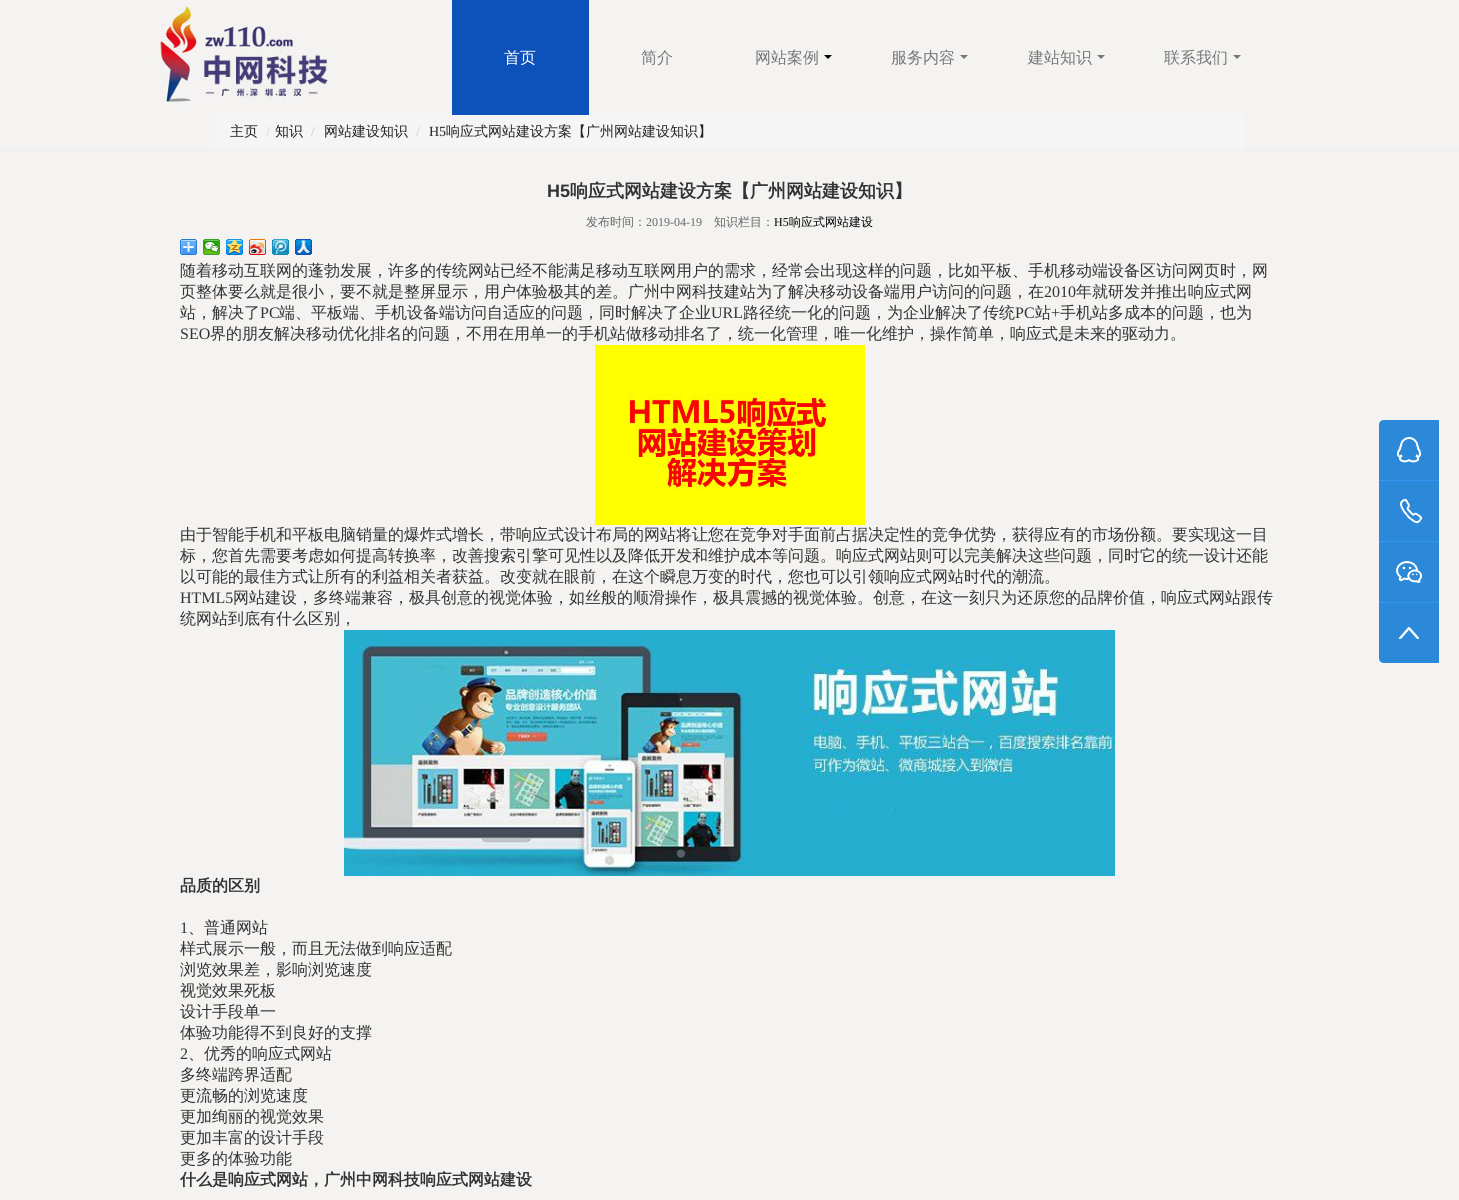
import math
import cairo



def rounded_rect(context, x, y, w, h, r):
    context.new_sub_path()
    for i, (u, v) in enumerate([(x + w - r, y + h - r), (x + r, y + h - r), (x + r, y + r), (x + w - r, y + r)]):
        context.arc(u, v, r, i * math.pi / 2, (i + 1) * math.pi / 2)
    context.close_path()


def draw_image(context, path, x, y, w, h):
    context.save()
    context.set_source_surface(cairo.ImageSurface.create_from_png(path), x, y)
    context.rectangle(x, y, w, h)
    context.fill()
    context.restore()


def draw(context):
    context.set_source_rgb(244 / 255, 243 / 255, 241 / 255)
    context.paint()
    draw_image(context, "images/1.png", 158, 6, 171, 100)
    context.set_source_rgb(245 / 255, 245 / 255, 245 / 255)
    rounded_rect(context, 215, 114, 1030, 36, 4)
    context.fill()
    context.set_source_rgb(13 / 255, 82 / 255, 186 / 255)
    context.rectangle(452, 0, 137, 115)
    context.fill()
    context.set_source_rgb(0, 0, 0)
    context.new_path()
    context.move_to(824, 55)
    context.line_to(832, 55)
    context.line_to(828, 59)
    context.close_path()
    context.fill()
    context.set_source_rgb(119 / 255, 119 / 255, 119 / 255)
    context.new_path()
    context.move_to(960, 55)
    context.line_to(968, 55)
    context.line_to(964, 59)
    context.close_path()
    context.fill()
    context.new_path()
    context.move_to(1097, 55)
    context.line_to(1105, 55)
    context.line_to(1101, 59)
    context.close_path()
    context.fill()
    context.new_path()
    context.move_to(1233, 55)
    context.line_to(1241, 55)
    context.line_to(1237, 59)
    context.close_path()
    context.fill()
    context.set_source_rgb(238 / 255, 238 / 255, 238 / 255)
    context.rectangle(0, 150, 1459, 1)
    context.fill()
    draw_image(context, "images/2.png", 180, 239, 17, 16)
    draw_image(context, "images/3.png", 203, 239, 17, 16)
    draw_image(context, "images/4.png", 226, 239, 17, 16)
    draw_image(context, "images/5.png", 249, 239, 17, 16)
    draw_image(context, "images/6.png", 272, 239, 17, 16)
    draw_image(context, "images/7.png", 295, 239, 17, 16)
    draw_image(context, "images/8.png", 595, 345, 270, 180)
    draw_image(context, "images/9.png", 344, 630, 771, 246)
    context.set_source_rgb(44 / 255, 136 / 255, 216 / 255)
    context.new_path()
    context.move_to(1384, 420)
    context.line_to(1439, 420)
    context.line_to(1439, 481)
    context.line_to(1379, 481)
    context.line_to(1379, 425)
    context.curve_to(1379, 422, 1381, 420, 1384, 420)
    context.close_path()
    context.fill()
    draw_image(context, "images/10.png", 1397, 437, 24, 26)
    context.set_source_rgb(49 / 255, 151 / 255, 240 / 255)
    context.rectangle(1379, 480, 60, 1)
    context.fill()
    context.set_source_rgb(44 / 255, 136 / 255, 216 / 255)
    context.rectangle(1379, 481, 60, 60)
    context.fill()
    draw_image(context, "images/11.png", 1399, 498, 24, 26)
    context.set_source_rgb(49 / 255, 151 / 255, 240 / 255)
    context.rectangle(1379, 541, 60, 1)
    context.fill()
    context.set_source_rgb(44 / 255, 136 / 255, 216 / 255)
    context.rectangle(1379, 542, 60, 60)
    context.fill()
    draw_image(context, "images/12.png", 1396, 561, 26, 22)
    context.set_source_rgb(49 / 255, 151 / 255, 240 / 255)
    context.rectangle(1379, 602, 60, 1)
    context.fill()
    context.set_source_rgb(44 / 255, 136 / 255, 216 / 255)
    context.new_path()
    context.move_to(1379, 603)
    context.line_to(1439, 603)
    context.line_to(1439, 663)
    context.line_to(1384, 663)
    context.curve_to(1381, 663, 1379, 661, 1379, 658)
    context.close_path()
    context.fill()
    draw_image(context, "images/13.png", 1399, 627, 20, 12)
    context.select_font_face("WenQuanYi Zen Hei Medium")
    context.set_font_size(16)
    context.set_source_rgb(1, 1, 1)
    context.move_to(504, 63)
    context.show_text("首页")
    context.set_source_rgb(119 / 255, 119 / 255, 119 / 255)
    context.move_to(641, 63)
    context.show_text("简介")
    context.move_to(755, 63)
    context.show_text("网站案例")
    context.move_to(891, 63)
    context.show_text("服务内容")
    context.move_to(1028, 63)
    context.show_text("建站知识")
    context.move_to(1164, 63)
    context.show_text("联系我们")
    context.set_font_size(14)
    context.set_source_rgb(34 / 255, 34 / 255, 34 / 255)
    context.move_to(230, 136)
    context.show_text("主页")
    context.select_font_face("Liberation Serif")
    context.set_source_rgb(204 / 255, 204 / 255, 204 / 255)
    context.move_to(266, 136)
    context.show_text("/")
    context.select_font_face("WenQuanYi Zen Hei Medium")
    context.set_source_rgb(34 / 255, 34 / 255, 34 / 255)
    context.move_to(275, 136)
    context.show_text("知识")
    context.select_font_face("Liberation Serif")
    context.set_source_rgb(204 / 255, 204 / 255, 204 / 255)
    context.move_to(311, 136)
    context.show_text("/")
    context.select_font_face("WenQuanYi Zen Hei Medium")
    context.set_source_rgb(34 / 255, 34 / 255, 34 / 255)
    context.move_to(324, 136)
    context.show_text("网站建设知识")
    context.select_font_face("Liberation Serif")
    context.set_source_rgb(204 / 255, 204 / 255, 204 / 255)
    context.move_to(416, 136)
    context.show_text("/")
    context.set_source_rgb(34 / 255, 34 / 255, 34 / 255)
    context.move_to(429, 136)
    context.show_text("H5")
    context.select_font_face("WenQuanYi Zen Hei Medium")
    context.move_to(446, 136)
    context.show_text("响应式网站建设方案【广州网站建设知识】")
    context.select_font_face("Liberation Sans", cairo.FontSlant.NORMAL, cairo.FontWeight.BOLD)
    context.set_font_size(18)
    context.set_source_rgb(51 / 255, 51 / 255, 51 / 255)
    context.move_to(547, 197)
    context.show_text("H5")
    context.select_font_face("WenQuanYi Zen Hei", cairo.FontSlant.NORMAL, cairo.FontWeight.BOLD)
    context.move_to(570, 197)
    context.show_text("响应式网站建设方案【广州网站建设知识】")
    context.select_font_face("WenQuanYi Zen Hei Medium")
    context.set_font_size(12)
    context.set_source_rgb(102 / 255, 102 / 255, 102 / 255)
    context.move_to(586, 226)
    context.show_text("发布时间：")
    context.select_font_face("Liberation Serif")
    context.move_to(646, 226)
    context.show_text("2019-04-19")
    context.select_font_face("WenQuanYi Zen Hei Medium")
    context.move_to(714, 226)
    context.show_text("知识栏目：")
    context.select_font_face("Liberation Serif")
    context.set_source_rgb(0, 0, 0)
    context.move_to(774, 226)
    context.show_text("H5")
    context.select_font_face("WenQuanYi Zen Hei Medium")
    context.move_to(789, 226)
    context.show_text("响应式网站建设")
    context.set_font_size(16)
    context.set_source_rgb(51 / 255, 51 / 255, 51 / 255)
    context.move_to(180, 276)
    context.show_text("随着移动互联网的蓬勃发展，许多的传统网站已经不能满足移动互联网用户的需求，经常会出现这样的问题，比如平板、手机移动端设备区访问网页时，网")
    context.move_to(180, 297)
    context.show_text("页整体要么就是很小，要不就是整屏显示，用户体验极其的差。广州中网科技建站为了解决移动设备端用户访问的问题，在")
    context.select_font_face("Liberation Serif")
    context.move_to(1044, 297)
    context.show_text("2010")
    context.select_font_face("WenQuanYi Zen Hei Medium")
    context.move_to(1076, 297)
    context.show_text("年就研发并推出响应式网")
    context.move_to(180, 318)
    context.show_text("站，解决了")
    context.select_font_face("Liberation Serif")
    context.move_to(260, 318)
    context.show_text("PC")
    context.select_font_face("WenQuanYi Zen Hei Medium")
    context.move_to(279, 318)
    context.show_text("端、平板端、手机设备端访问自适应的问题，同时解决了企业")
    context.select_font_face("Liberation Serif")
    context.move_to(711, 318)
    context.show_text("URL")
    context.select_font_face("WenQuanYi Zen Hei Medium")
    context.move_to(743, 318)
    context.show_text("路径统一化的问题，为企业解决了传统")
    context.select_font_face("Liberation Serif")
    context.move_to(1015, 318)
    context.show_text("PC")
    context.select_font_face("WenQuanYi Zen Hei Medium")
    context.move_to(1035, 318)
    context.show_text("站")
    context.select_font_face("Liberation Serif")
    context.move_to(1051, 318)
    context.show_text("+")
    context.select_font_face("WenQuanYi Zen Hei Medium")
    context.move_to(1060, 318)
    context.show_text("手机站多成本的问题，也为")
    context.select_font_face("Liberation Serif")
    context.move_to(180, 339)
    context.show_text("SEO")
    context.select_font_face("WenQuanYi Zen Hei Medium")
    context.move_to(210, 339)
    context.show_text("界的朋友解决移动优化排名的问题，不用在用单一的手机站做移动排名了，统一化管理，唯一化维护，操作简单，响应式是未来的驱动力。")
    context.move_to(180, 540)
    context.show_text("由于智能手机和平板电脑销量的爆炸式增长，带响应式设计布局的网站将让您在竞争对手面前占据决定性的竞争优势，获得应有的市场份额。要实现这一目")
    context.move_to(180, 561)
    context.show_text("标，您首先需要考虑如何提高转换率，改善搜索引擎可见性以及降低开发和维护成本等问题。响应式网站则可以完美解决这些问题，同时它的统一设计还能")
    context.move_to(180, 582)
    context.show_text("以可能的最佳方式让所有的利益相关者获益。改变就在眼前，在这个瞬息万变的时代，您也可以引领响应式网站时代的潮流。")
    context.select_font_face("Liberation Serif")
    context.move_to(180, 603)
    context.show_text("HTML5")
    context.select_font_face("WenQuanYi Zen Hei Medium")
    context.move_to(233, 603)
    context.show_text("网站建设，多终端兼容，极具创意的视觉体验，如丝般的顺滑操作，极具震撼的视觉体验。创意，在这一刻只为还原您的品牌价值，响应式网站跟传")
    context.move_to(180, 624)
    context.show_text("统网站到底有什么区别，")
    context.select_font_face("WenQuanYi Zen Hei", cairo.FontSlant.NORMAL, cairo.FontWeight.BOLD)
    context.move_to(180, 891)
    context.show_text("品质的区别")
    context.select_font_face("Liberation Serif")
    context.move_to(180, 933)
    context.show_text("1")
    context.select_font_face("WenQuanYi Zen Hei Medium")
    context.move_to(188, 933)
    context.show_text("、普通网站")
    context.move_to(180, 954)
    context.show_text("样式展示一般，而且无法做到响应适配")
    context.move_to(180, 975)
    context.show_text("浏览效果差，影响浏览速度")
    context.move_to(180, 996)
    context.show_text("视觉效果死板")
    context.move_to(180, 1017)
    context.show_text("设计手段单一")
    context.move_to(180, 1038)
    context.show_text("体验功能得不到良好的支撑")
    context.select_font_face("Liberation Serif")
    context.move_to(180, 1059)
    context.show_text("2")
    context.select_font_face("WenQuanYi Zen Hei Medium")
    context.move_to(188, 1059)
    context.show_text("、优秀的响应式网站")
    context.move_to(180, 1080)
    context.show_text("多终端跨界适配")
    context.move_to(180, 1101)
    context.show_text("更流畅的浏览速度")
    context.move_to(180, 1122)
    context.show_text("更加绚丽的视觉效果")
    context.move_to(180, 1143)
    context.show_text("更加丰富的设计手段")
    context.move_to(180, 1164)
    context.show_text("更多的体验功能")
    context.select_font_face("WenQuanYi Zen Hei", cairo.FontSlant.NORMAL, cairo.FontWeight.BOLD)
    context.move_to(180, 1185)
    context.show_text("什么是响应式网站，广州中网科技响应式网站建设")


surface = cairo.ImageSurface(cairo.Format.RGB24, 1459, 1200)
context = cairo.Context(surface)
options = cairo.FontOptions()
options.set_hint_metrics(cairo.HintMetrics.OFF)
options.set_hint_style(cairo.HintStyle.NONE)
context.set_font_options(options)
context.set_miter_limit(4)
draw(context)
surface.write_to_png("out.png")
